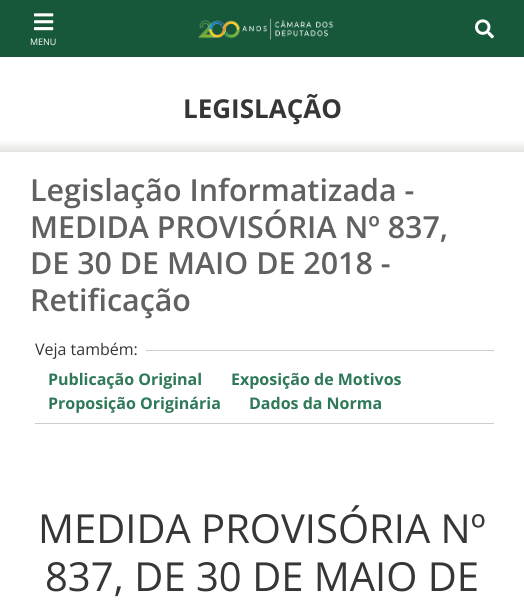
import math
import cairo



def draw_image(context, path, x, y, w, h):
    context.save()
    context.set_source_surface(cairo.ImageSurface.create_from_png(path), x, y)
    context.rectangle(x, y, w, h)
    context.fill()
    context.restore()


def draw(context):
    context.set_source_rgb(1, 1, 1)
    context.paint()
    context.set_source_rgb(23 / 255, 88 / 255, 59 / 255)
    context.rectangle(0, 0, 524, 57)
    context.fill()
    draw_image(context, "images/1.png", 198, 18, 136, 22)
    draw_image(context, "images/2.png", 475, 19, 19, 20)
    draw_image(context, "images/3.png", 34, 13, 20, 18)
    gradient = cairo.LinearGradient(262, 140, 262, 152)
    gradient.add_color_stop_rgba(0, 1, 1, 1, 1)
    gradient.add_color_stop_rgba(1, 228 / 255, 227 / 255, 226 / 255, 1)
    context.set_source(gradient)
    context.rectangle(0, 141, 524, 11)
    context.fill()
    context.set_source_rgb(205 / 255, 205 / 255, 205 / 255)
    context.rectangle(146, 350, 348, 1)
    context.fill()
    context.rectangle(35, 423, 459, 1)
    context.fill()
    context.select_font_face("Open Sans")
    context.set_font_size(9)
    context.set_source_rgb(1, 1, 1)
    context.move_to(30, 45)
    context.show_text("MENU")
    context.select_font_face("Open Sans", cairo.FontSlant.NORMAL, cairo.FontWeight.BOLD)
    context.set_font_size(26)
    context.set_source_rgb(54 / 255, 54 / 255, 54 / 255)
    context.move_to(183, 118)
    context.show_text("LEGISLAÇÃO")
    context.select_font_face("Open Sans SemiBold")
    context.set_font_size(30.4)
    context.set_source_rgb(97 / 255, 97 / 255, 97 / 255)
    context.move_to(30, 201)
    context.show_text("Legislação Informatizada -")
    context.move_to(30, 238)
    context.show_text("MEDIDA PROVISÓRIA Nº 837,")
    context.move_to(30, 274)
    context.show_text("DE 30 DE MAIO DE 2018 -")
    context.move_to(30, 311)
    context.show_text("Retificação")
    context.select_font_face("Open Sans")
    context.set_font_size(16)
    context.set_source_rgb(54 / 255, 54 / 255, 54 / 255)
    context.move_to(35, 355)
    context.show_text("Veja também:")
    context.select_font_face("Open Sans", cairo.FontSlant.NORMAL, cairo.FontWeight.BOLD)
    context.set_source_rgb(47 / 255, 121 / 255, 88 / 255)
    context.move_to(48, 385)
    context.show_text("Publicação Original")
    context.move_to(231, 385)
    context.show_text("Exposição de Motivos")
    context.move_to(48, 409)
    context.show_text("Proposição Originária")
    context.move_to(249, 409)
    context.show_text("Dados da Norma")
    context.select_font_face("Open Sans")
    context.set_font_size(40)
    context.set_source_rgb(54 / 255, 54 / 255, 54 / 255)
    context.move_to(38, 543)
    context.show_text("MEDIDA PROVISÓRIA Nº")
    context.move_to(45, 591)
    context.show_text("837, DE 30 DE MAIO DE")


surface = cairo.ImageSurface(cairo.Format.RGB24, 524, 606)
context = cairo.Context(surface)
options = cairo.FontOptions()
options.set_hint_metrics(cairo.HintMetrics.OFF)
options.set_hint_style(cairo.HintStyle.NONE)
context.set_font_options(options)
context.set_miter_limit(4)
draw(context)
surface.write_to_png("out.png")
